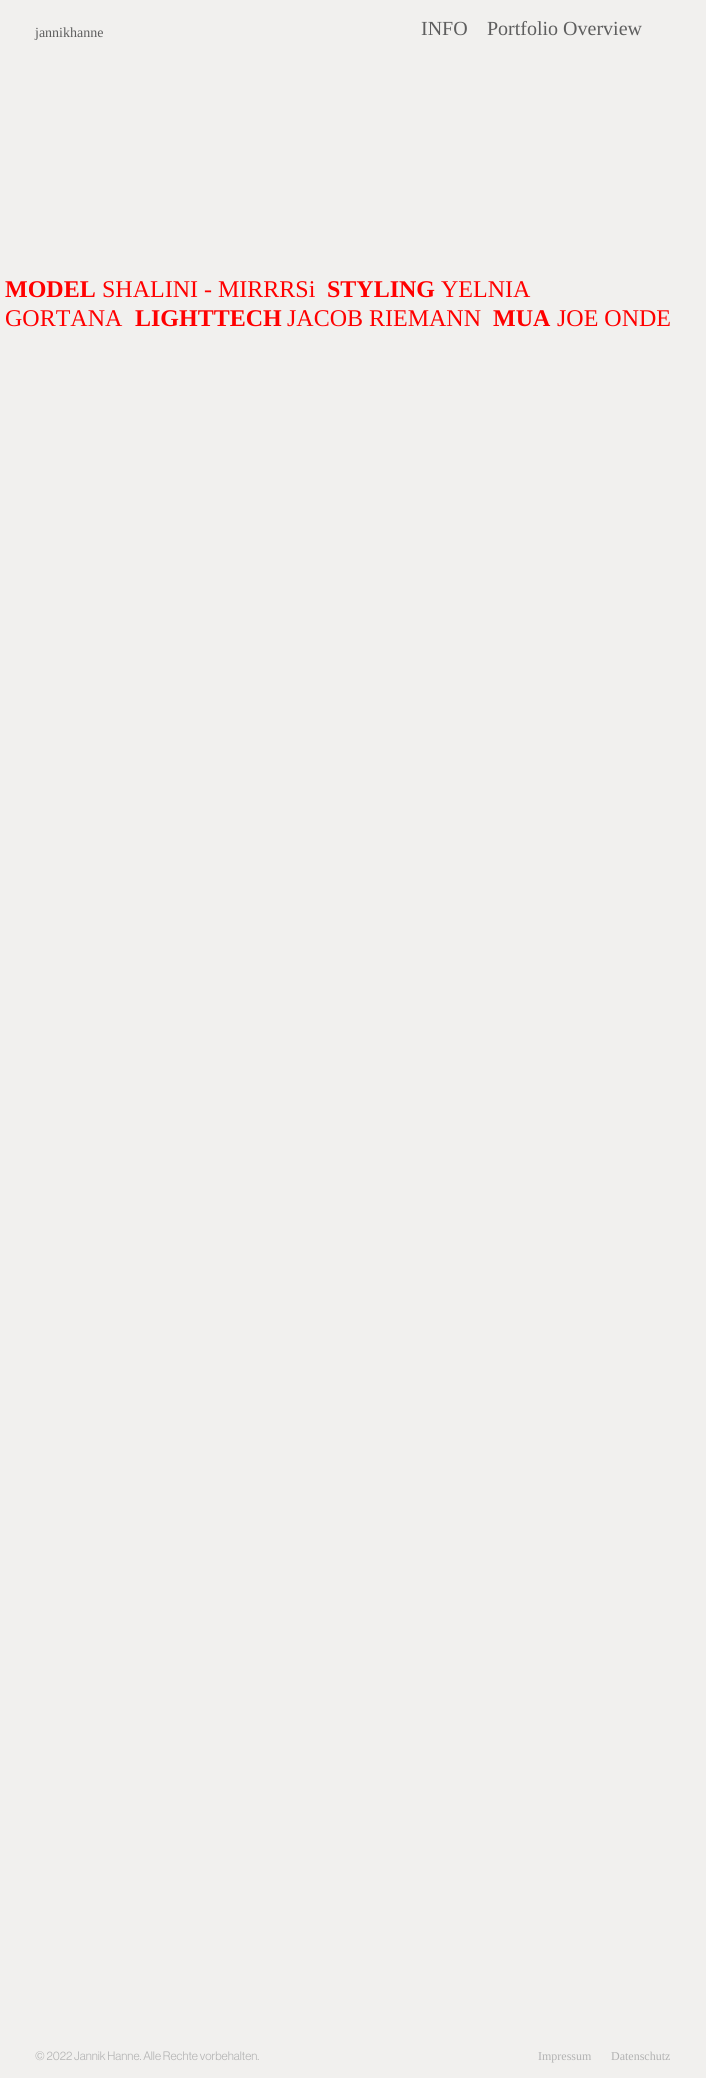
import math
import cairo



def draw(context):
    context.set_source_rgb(241 / 255, 240 / 255, 238 / 255)
    context.paint()
    context.select_font_face("Liberation Serif")
    context.set_font_size(14)
    context.set_source_rgb(94 / 255, 94 / 255, 94 / 255)
    context.move_to(35, 37)
    context.show_text("jannikhanne")
    context.set_font_size(20)
    context.move_to(421, 35)
    context.show_text("INFO")
    context.move_to(487, 35)
    context.show_text("Portfolio Overview")
    context.select_font_face("Liberation Serif", cairo.FontSlant.NORMAL, cairo.FontWeight.BOLD)
    context.set_font_size(24)
    context.set_source_rgb(1, 0, 0)
    context.move_to(5, 297)
    context.show_text("MODEL")
    context.select_font_face("Liberation Serif")
    context.move_to(102, 297)
    context.show_text("SHALINI - MIRRRSi")
    context.select_font_face("Liberation Serif", cairo.FontSlant.NORMAL, cairo.FontWeight.BOLD)
    context.move_to(327, 297)
    context.show_text("STYLING")
    context.select_font_face("Liberation Serif")
    context.move_to(441, 297)
    context.show_text("YELNIA")
    context.move_to(5, 326)
    context.show_text("GORTANA")
    context.select_font_face("Liberation Serif", cairo.FontSlant.NORMAL, cairo.FontWeight.BOLD)
    context.move_to(135, 326)
    context.show_text("LIGHTTECH")
    context.select_font_face("Liberation Serif")
    context.move_to(287, 326)
    context.show_text("JACOB RIEMANN")
    context.select_font_face("Liberation Serif", cairo.FontSlant.NORMAL, cairo.FontWeight.BOLD)
    context.move_to(493, 326)
    context.show_text("MUA")
    context.select_font_face("Liberation Serif")
    context.move_to(557, 326)
    context.show_text("JOE ONDE")
    context.select_font_face("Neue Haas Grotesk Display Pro")
    context.set_font_size(12)
    context.set_source_rgb(178 / 255, 178 / 255, 178 / 255)
    context.move_to(35, 2060)
    context.show_text("© 2022 Jannik Hanne. Alle Rechte vorbehalten.")
    context.select_font_face("Liberation Serif")
    context.move_to(538, 2060)
    context.show_text("Impressum")
    context.move_to(611, 2060)
    context.show_text("Datenschutz")


surface = cairo.ImageSurface(cairo.Format.RGB24, 706, 2078)
context = cairo.Context(surface)
options = cairo.FontOptions()
options.set_hint_metrics(cairo.HintMetrics.OFF)
options.set_hint_style(cairo.HintStyle.NONE)
context.set_font_options(options)
context.set_miter_limit(4)
draw(context)
surface.write_to_png("out.png")
